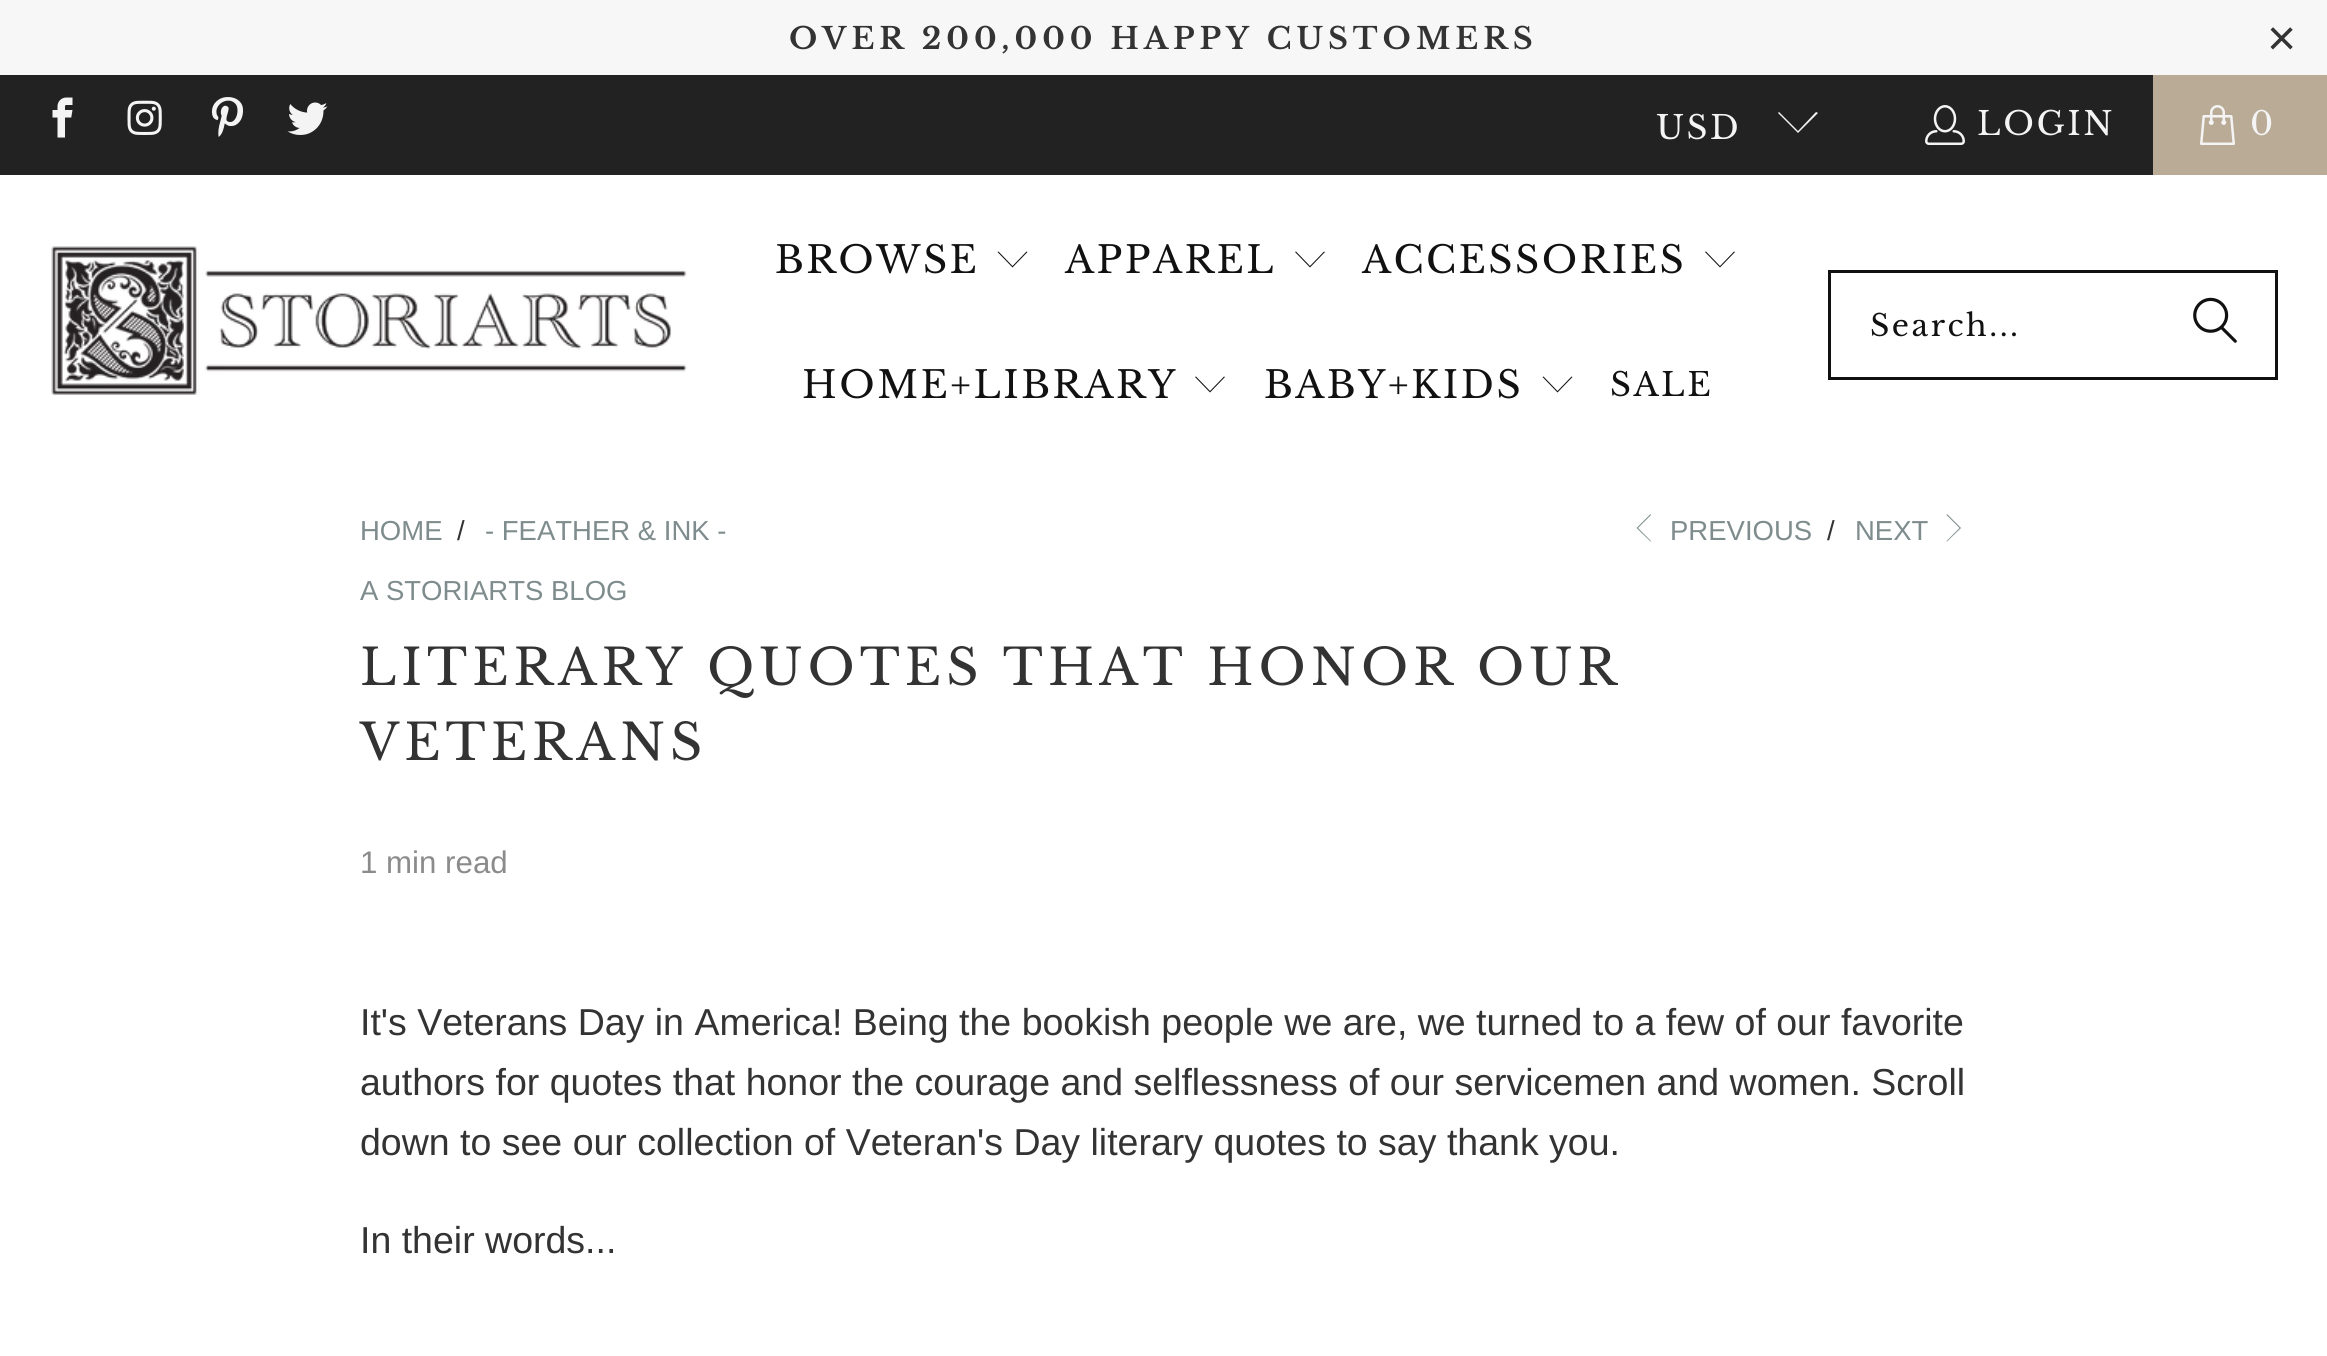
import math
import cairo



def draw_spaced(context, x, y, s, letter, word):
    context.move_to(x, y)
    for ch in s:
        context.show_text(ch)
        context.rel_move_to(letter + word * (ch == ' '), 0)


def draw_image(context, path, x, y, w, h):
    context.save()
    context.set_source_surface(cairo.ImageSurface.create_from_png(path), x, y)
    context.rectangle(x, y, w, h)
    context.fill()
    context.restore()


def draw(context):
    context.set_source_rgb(1, 1, 1)
    context.paint()
    context.set_source_rgb(247 / 255, 247 / 255, 247 / 255)
    context.rectangle(0, 0, 2327, 75)
    context.fill()
    context.set_source_rgb(34 / 255, 34 / 255, 34 / 255)
    context.rectangle(0, 75, 2153, 100)
    context.fill()
    draw_image(context, "images/1.png", 52, 97, 21, 41)
    draw_image(context, "images/2.png", 127, 100, 35, 35)
    draw_image(context, "images/3.png", 211, 97, 33, 40)
    draw_image(context, "images/4.png", 287, 102, 41, 33)
    context.set_source_rgb(244 / 255, 244 / 255, 244 / 255)
    context.new_path()
    context.move_to(1798, 133)
    context.line_to(1778, 113)
    context.line_to(1779, 112)
    context.line_to(1798, 131)
    context.line_to(1816, 112)
    context.line_to(1818, 113)
    context.close_path()
    context.fill()
    draw_image(context, "images/5.png", 1925, 105, 40, 40)
    context.set_source_rgb(186 / 255, 171 / 255, 151 / 255)
    context.rectangle(2153, 75, 174, 100)
    context.fill()
    draw_image(context, "images/6.png", 2200, 105, 35, 40)
    draw_image(context, "images/7.png", 51, 246, 636, 149)
    context.set_source_rgb(17 / 255, 17 / 255, 17 / 255)
    context.new_path()
    context.move_to(1012.5, 267.5)
    context.line_to(997.5, 252)
    context.line_to(998.5, 251.5)
    context.line_to(1012.5, 266)
    context.line_to(1026.5, 251.5)
    context.line_to(1027.5, 252)
    context.close_path()
    context.fill()
    context.new_path()
    context.move_to(1310, 267.5)
    context.line_to(1295, 252)
    context.line_to(1296, 251.5)
    context.line_to(1310, 266)
    context.line_to(1324, 251.5)
    context.line_to(1325, 252)
    context.close_path()
    context.fill()
    context.new_path()
    context.move_to(1720, 267.5)
    context.line_to(1705, 252)
    context.line_to(1706, 251.5)
    context.line_to(1720, 266)
    context.line_to(1734, 251.5)
    context.line_to(1735, 252)
    context.close_path()
    context.fill()
    context.new_path()
    context.move_to(1210, 392.5)
    context.line_to(1195, 377)
    context.line_to(1196, 376.5)
    context.line_to(1210, 391)
    context.line_to(1224, 376.5)
    context.line_to(1225, 377)
    context.close_path()
    context.fill()
    context.new_path()
    context.move_to(1557.5, 392.5)
    context.line_to(1542.5, 377)
    context.line_to(1543.5, 376.5)
    context.line_to(1557.5, 391)
    context.line_to(1571.5, 376.5)
    context.line_to(1572.5, 377)
    context.close_path()
    context.fill()
    context.rectangle(1829.5, 271.5, 447, 107)
    context.set_line_width(3)
    context.stroke()
    draw_image(context, "images/8.png", 2193, 297, 44, 46)
    context.set_source_rgb(127 / 255, 140 / 255, 141 / 255)
    context.new_path()
    context.move_to(1650.5, 541.5)
    context.line_to(1636.5, 528)
    context.line_to(1650.5, 514)
    context.line_to(1651, 515)
    context.line_to(1638, 528)
    context.line_to(1651, 541)
    context.close_path()
    context.fill()
    context.new_path()
    context.move_to(1947, 541.5)
    context.line_to(1946.5, 541)
    context.line_to(1959.5, 528)
    context.line_to(1946.5, 515)
    context.line_to(1947, 514)
    context.line_to(1961, 528)
    context.close_path()
    context.fill()
    context.select_font_face("Libre Baskerville", cairo.FontSlant.NORMAL, cairo.FontWeight.BOLD)
    context.set_font_size(30)
    context.set_source_rgb(51 / 255, 51 / 255, 51 / 255)
    draw_spaced(context, 789, 49, "OVER 200,000 HAPPY CUSTOMERS", 5, 0)
    context.select_font_face("Liberation Sans")
    context.set_font_size(50)
    draw_spaced(context, 2267, 55, "×", 5, 0)
    context.select_font_face("Libre Baskerville")
    context.set_font_size(32.5)
    context.set_source_rgb(244 / 255, 244 / 255, 244 / 255)
    draw_spaced(context, 1656, 139, "USD", 2.5, 0)
    draw_spaced(context, 1977, 135, "LOGIN", 2.5, 0)
    draw_spaced(context, 2250, 135, "0", 2.5, 0)
    context.set_font_size(37.5)
    context.set_source_rgb(17 / 255, 17 / 255, 17 / 255)
    draw_spaced(context, 775, 273, "BROWSE", 2.5, 0)
    draw_spaced(context, 1065, 273, "APPAREL", 2.5, 0)
    draw_spaced(context, 1362, 273, "ACCESSORIES", 2.5, 0)
    draw_spaced(context, 802, 398, "HOME+LIBRARY", 2.5, 0)
    draw_spaced(context, 1264, 398, "BABY+KIDS", 2.5, 0)
    context.set_font_size(32.5)
    draw_spaced(context, 1610, 396, "SALE", 2.5, 0)
    context.set_font_size(30)
    draw_spaced(context, 1870, 336, "Search...", 2.5, 0)
    context.select_font_face("Liberation Sans")
    context.set_font_size(27.5)
    context.set_source_rgb(127 / 255, 140 / 255, 141 / 255)
    context.move_to(360, 540)
    context.show_text("HOME")
    context.set_source_rgb(51 / 255, 51 / 255, 51 / 255)
    context.move_to(457, 540)
    context.show_text("/")
    context.set_source_rgb(127 / 255, 140 / 255, 141 / 255)
    context.move_to(485, 540)
    context.show_text("- FEATHER & INK -")
    context.move_to(360, 600)
    context.show_text("A STORIARTS BLOG")
    context.move_to(1670, 540)
    context.show_text("PREVIOUS")
    context.set_source_rgb(51 / 255, 51 / 255, 51 / 255)
    context.move_to(1827, 540)
    context.show_text("/")
    context.set_source_rgb(127 / 255, 140 / 255, 141 / 255)
    context.move_to(1855, 540)
    context.show_text("NEXT")
    context.select_font_face("Libre Baskerville")
    context.set_font_size(50)
    context.set_source_rgb(51 / 255, 51 / 255, 51 / 255)
    draw_spaced(context, 360, 685, "LITERARY QUOTES THAT HONOR OUR", 5, 0)
    draw_spaced(context, 360, 760, "VETERANS", 5, 0)
    context.select_font_face("Liberation Sans")
    context.set_font_size(31.25)
    context.set_source_rgb(140 / 255, 139 / 255, 139 / 255)
    context.move_to(360, 873)
    context.show_text("1 min read")
    context.set_font_size(37.5)
    context.set_source_rgb(51 / 255, 51 / 255, 51 / 255)
    context.move_to(360, 1035)
    context.show_text("It's Veterans Day in America! Being the bookish people we are, we turned to a few of our favorite")
    context.move_to(360, 1095)
    context.show_text("authors for quotes that honor the courage and selflessness of our servicemen and women. Scroll")
    context.move_to(360, 1155)
    context.show_text("down to see our collection of Veteran's Day literary quotes to say thank you.")
    context.move_to(360, 1253)
    context.show_text("In their words...")


surface = cairo.ImageSurface(cairo.Format.RGB24, 2327, 1356)
context = cairo.Context(surface)
options = cairo.FontOptions()
options.set_hint_metrics(cairo.HintMetrics.OFF)
options.set_hint_style(cairo.HintStyle.NONE)
context.set_font_options(options)
context.set_miter_limit(4)
draw(context)
surface.write_to_png("out.png")
